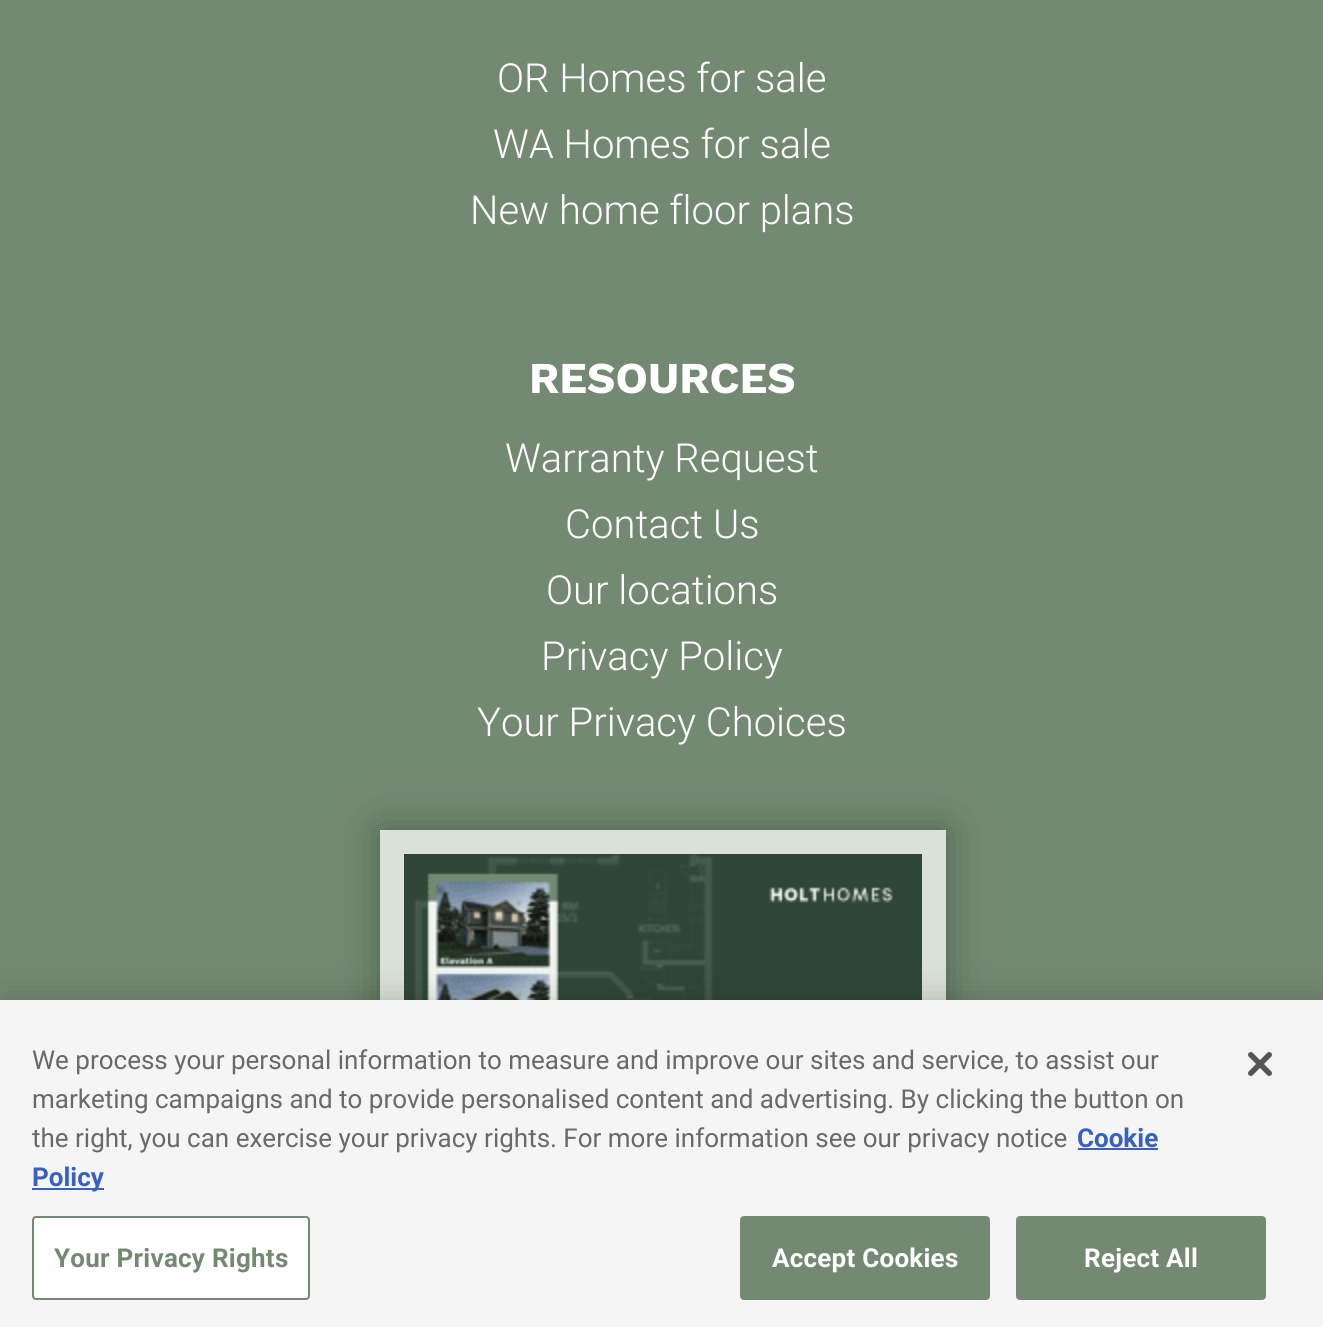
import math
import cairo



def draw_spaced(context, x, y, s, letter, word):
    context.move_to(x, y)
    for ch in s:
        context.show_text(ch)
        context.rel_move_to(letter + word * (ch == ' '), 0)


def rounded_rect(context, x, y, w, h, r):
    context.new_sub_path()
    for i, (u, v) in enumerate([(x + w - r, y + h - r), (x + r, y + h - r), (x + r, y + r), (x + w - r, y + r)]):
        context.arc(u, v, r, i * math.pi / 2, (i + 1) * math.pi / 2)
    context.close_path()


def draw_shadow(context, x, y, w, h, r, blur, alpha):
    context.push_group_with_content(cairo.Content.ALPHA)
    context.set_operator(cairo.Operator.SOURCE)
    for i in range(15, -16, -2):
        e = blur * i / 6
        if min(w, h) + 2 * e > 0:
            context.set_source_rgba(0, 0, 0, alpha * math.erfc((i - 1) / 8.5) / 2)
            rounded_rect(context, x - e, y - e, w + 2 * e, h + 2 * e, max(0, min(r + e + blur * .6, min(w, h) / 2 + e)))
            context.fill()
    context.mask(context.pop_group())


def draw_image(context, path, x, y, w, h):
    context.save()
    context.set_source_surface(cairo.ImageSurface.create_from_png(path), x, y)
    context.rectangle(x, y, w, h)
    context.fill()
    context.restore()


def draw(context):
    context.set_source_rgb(1, 1, 1)
    context.paint()
    gradient = cairo.LinearGradient(662, -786, 662, 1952)
    gradient.add_color_stop_rgba(0, 1, 1, 1, 1)
    gradient.add_color_stop_rgba(0.06, 1, 1, 1, 1)
    gradient.add_color_stop_rgba(0.06, 116 / 255, 137 / 255, 114 / 255, 1)
    context.set_source(gradient)
    context.rectangle(0, 0, 1323, 1000)
    context.fill()
    context.set_source_rgb(48 / 255, 71 / 255, 55 / 255)
    draw_shadow(context, 380, 830, 566, 482, 0, 20, 0.6)
    context.set_source_rgb(218 / 255, 225 / 255, 214 / 255)
    context.rectangle(380, 830, 566, 170)
    context.fill()
    draw_image(context, "images/1.png", 404, 854, 518, 146)
    context.set_source_rgb(0, 0, 0)
    draw_shadow(context, 0, 1000, 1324, 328, 0, 18, 0.2)
    context.set_source_rgb(245 / 255, 245 / 255, 245 / 255)
    context.rectangle(0, 1000, 1323, 327)
    context.fill()
    context.set_source_rgb(56 / 255, 96 / 255, 190 / 255)
    context.rectangle(1078, 1148, 80, 2)
    context.fill()
    context.rectangle(32, 1188, 72, 2)
    context.fill()
    context.set_source_rgb(1, 1, 1)
    rounded_rect(context, 33, 1217, 276, 82, 3)
    context.fill_preserve()
    context.set_source_rgb(116 / 255, 137 / 255, 114 / 255)
    context.stroke()
    rounded_rect(context, 741, 1217, 248, 82, 3)
    context.fill_preserve()
    context.stroke()
    rounded_rect(context, 1017, 1217, 248, 82, 3)
    context.fill_preserve()
    context.stroke()
    draw_image(context, "images/2.png", 1248, 1052, 24, 24)
    context.select_font_face("Roboto Light")
    context.set_font_size(40)
    context.set_source_rgb(1, 1, 1)
    context.move_to(497, 92)
    context.show_text("OR Homes for sale")
    context.move_to(493, 158)
    context.show_text("WA Homes for sale")
    context.move_to(470, 224)
    context.show_text("New home floor plans")
    context.select_font_face("Work Sans", cairo.FontSlant.NORMAL, cairo.FontWeight.BOLD)
    context.set_font_size(44)
    context.move_to(529, 393)
    context.show_text("RESOURCES")
    context.select_font_face("Roboto Light")
    context.set_font_size(40)
    context.move_to(505, 472)
    context.show_text("Warranty Request")
    context.move_to(565, 538)
    context.show_text("Contact Us")
    context.move_to(546, 604)
    context.show_text("Our locations")
    context.move_to(541, 670)
    context.show_text("Privacy Policy")
    context.move_to(477, 736)
    context.show_text("Your Privacy Choices")
    context.select_font_face("Roboto")
    context.set_font_size(26)
    context.set_source_rgb(105 / 255, 105 / 255, 105 / 255)
    context.move_to(32, 1069)
    context.show_text("We process your personal information to measure and improve our sites and service, to assist our")
    context.move_to(32, 1108)
    context.show_text("marketing campaigns and to provide personalised content and advertising. By clicking the button on")
    context.move_to(32, 1147)
    context.show_text("the right, you can exercise your privacy rights. For more information see our privacy notice")
    context.select_font_face("Roboto", cairo.FontSlant.NORMAL, cairo.FontWeight.BOLD)
    context.set_source_rgb(56 / 255, 96 / 255, 190 / 255)
    context.move_to(1077, 1147)
    context.show_text("Cookie")
    context.move_to(32, 1186)
    context.show_text("Policy")
    context.set_source_rgb(116 / 255, 137 / 255, 114 / 255)
    draw_spaced(context, 54, 1267, "Your Privacy Rights", 0.25, 0)
    context.set_source_rgb(1, 1, 1)
    draw_spaced(context, 772, 1267, "Accept Cookies", 0.25, 0)
    draw_spaced(context, 1084, 1267, "Reject All", 0.25, 0)


surface = cairo.ImageSurface(cairo.Format.RGB24, 1323, 1327)
context = cairo.Context(surface)
options = cairo.FontOptions()
options.set_hint_metrics(cairo.HintMetrics.OFF)
options.set_hint_style(cairo.HintStyle.NONE)
context.set_font_options(options)
context.set_miter_limit(4)
draw(context)
surface.write_to_png("out.png")
